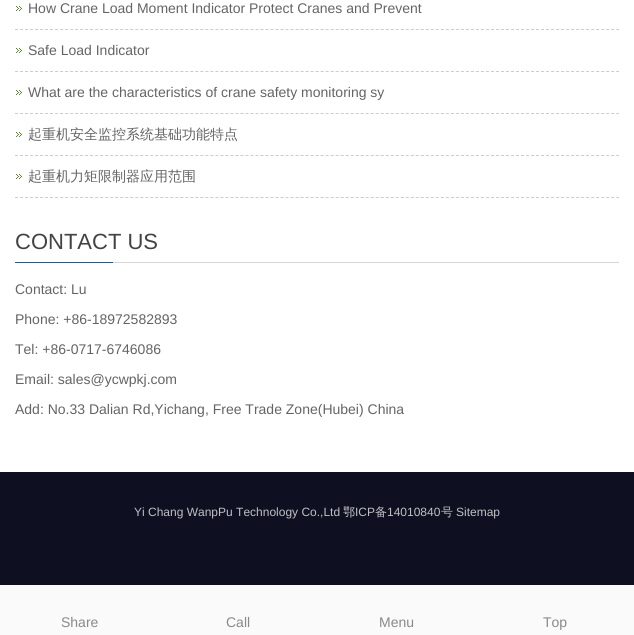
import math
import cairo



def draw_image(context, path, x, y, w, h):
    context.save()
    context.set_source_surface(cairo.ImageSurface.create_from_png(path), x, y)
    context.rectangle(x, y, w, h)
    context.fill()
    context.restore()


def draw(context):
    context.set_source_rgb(1, 1, 1)
    context.paint()
    draw_image(context, "images/1.png", 16, 6, 6, 5)
    context.new_path()
    context.move_to(15, 29.5)
    context.line_to(619, 29.5)
    context.set_source_rgb(204 / 255, 204 / 255, 204 / 255)
    context.set_line_width(1)
    context.set_dash([3, 2.01])
    context.stroke()
    draw_image(context, "images/1.png", 16, 48, 6, 5)
    context.new_path()
    context.move_to(15, 71.5)
    context.line_to(619, 71.5)
    context.stroke()
    draw_image(context, "images/1.png", 16, 90, 6, 5)
    context.new_path()
    context.move_to(15, 113.5)
    context.line_to(619, 113.5)
    context.stroke()
    draw_image(context, "images/1.png", 16, 132, 6, 5)
    context.new_path()
    context.move_to(15, 155.5)
    context.line_to(619, 155.5)
    context.stroke()
    draw_image(context, "images/1.png", 16, 174, 6, 5)
    context.new_path()
    context.move_to(15, 197.5)
    context.line_to(619, 197.5)
    context.stroke()
    draw_image(context, "images/2.png", 15, 260, 604, 3)
    context.set_source_rgb(14 / 255, 15 / 255, 33 / 255)
    context.rectangle(0, 472, 634, 113)
    context.fill()
    context.set_source_rgb(250 / 255, 250 / 255, 250 / 255)
    context.rectangle(0, 585, 634, 50)
    context.fill()
    context.select_font_face("Liberation Sans")
    context.set_font_size(14)
    context.set_source_rgb(101 / 255, 100 / 255, 100 / 255)
    context.move_to(28, 13)
    context.show_text("How Crane Load Moment Indicator Protect Cranes and Prevent")
    context.move_to(28, 55)
    context.show_text("Safe Load Indicator")
    context.move_to(28, 97)
    context.show_text("What are the characteristics of crane safety monitoring sy")
    context.select_font_face("WenQuanYi Zen Hei Medium")
    context.move_to(28, 139)
    context.show_text("起重机安全监控系统基础功能特点")
    context.move_to(28, 181)
    context.show_text("起重机力矩限制器应用范围")
    context.select_font_face("Liberation Sans")
    context.set_font_size(22)
    context.set_source_rgb(67 / 255, 67 / 255, 67 / 255)
    context.move_to(15, 249)
    context.show_text("CONTACT US")
    context.set_font_size(14)
    context.set_source_rgb(101 / 255, 100 / 255, 100 / 255)
    context.move_to(15, 294)
    context.show_text("Contact: Lu")
    context.move_to(15, 324)
    context.show_text("Phone: +86-18972582893")
    context.move_to(15, 354)
    context.show_text("Tel: +86-0717-6746086")
    context.move_to(15, 384)
    context.show_text("Email: sales@ycwpkj.com")
    context.move_to(15, 414)
    context.show_text("Add: No.33 Dalian Rd,Yichang, Free Trade Zone(Hubei) China")
    context.set_font_size(12)
    context.set_source_rgb(192 / 255, 192 / 255, 195 / 255)
    context.move_to(134, 516)
    context.show_text("Yi Chang WanpPu Technology Co.,Ltd")
    context.select_font_face("WenQuanYi Zen Hei Medium")
    context.move_to(343, 516)
    context.show_text("鄂")
    context.select_font_face("Liberation Sans")
    context.move_to(355, 516)
    context.show_text("ICP")
    context.select_font_face("WenQuanYi Zen Hei Medium")
    context.move_to(375, 516)
    context.show_text("备")
    context.select_font_face("Liberation Sans")
    context.move_to(387, 516)
    context.show_text("14010840")
    context.select_font_face("WenQuanYi Zen Hei Medium")
    context.move_to(441, 516)
    context.show_text("号")
    context.select_font_face("Liberation Sans")
    context.move_to(456, 516)
    context.show_text("Sitemap")
    context.set_font_size(14)
    context.set_source_rgb(137 / 255, 137 / 255, 137 / 255)
    context.move_to(61, 627)
    context.show_text("Share")
    context.move_to(226, 627)
    context.show_text("Call")
    context.move_to(379, 627)
    context.show_text("Menu")
    context.move_to(543, 627)
    context.show_text("Top")


surface = cairo.ImageSurface(cairo.Format.RGB24, 634, 635)
context = cairo.Context(surface)
options = cairo.FontOptions()
options.set_hint_metrics(cairo.HintMetrics.OFF)
options.set_hint_style(cairo.HintStyle.NONE)
context.set_font_options(options)
context.set_miter_limit(4)
draw(context)
surface.write_to_png("out.png")
